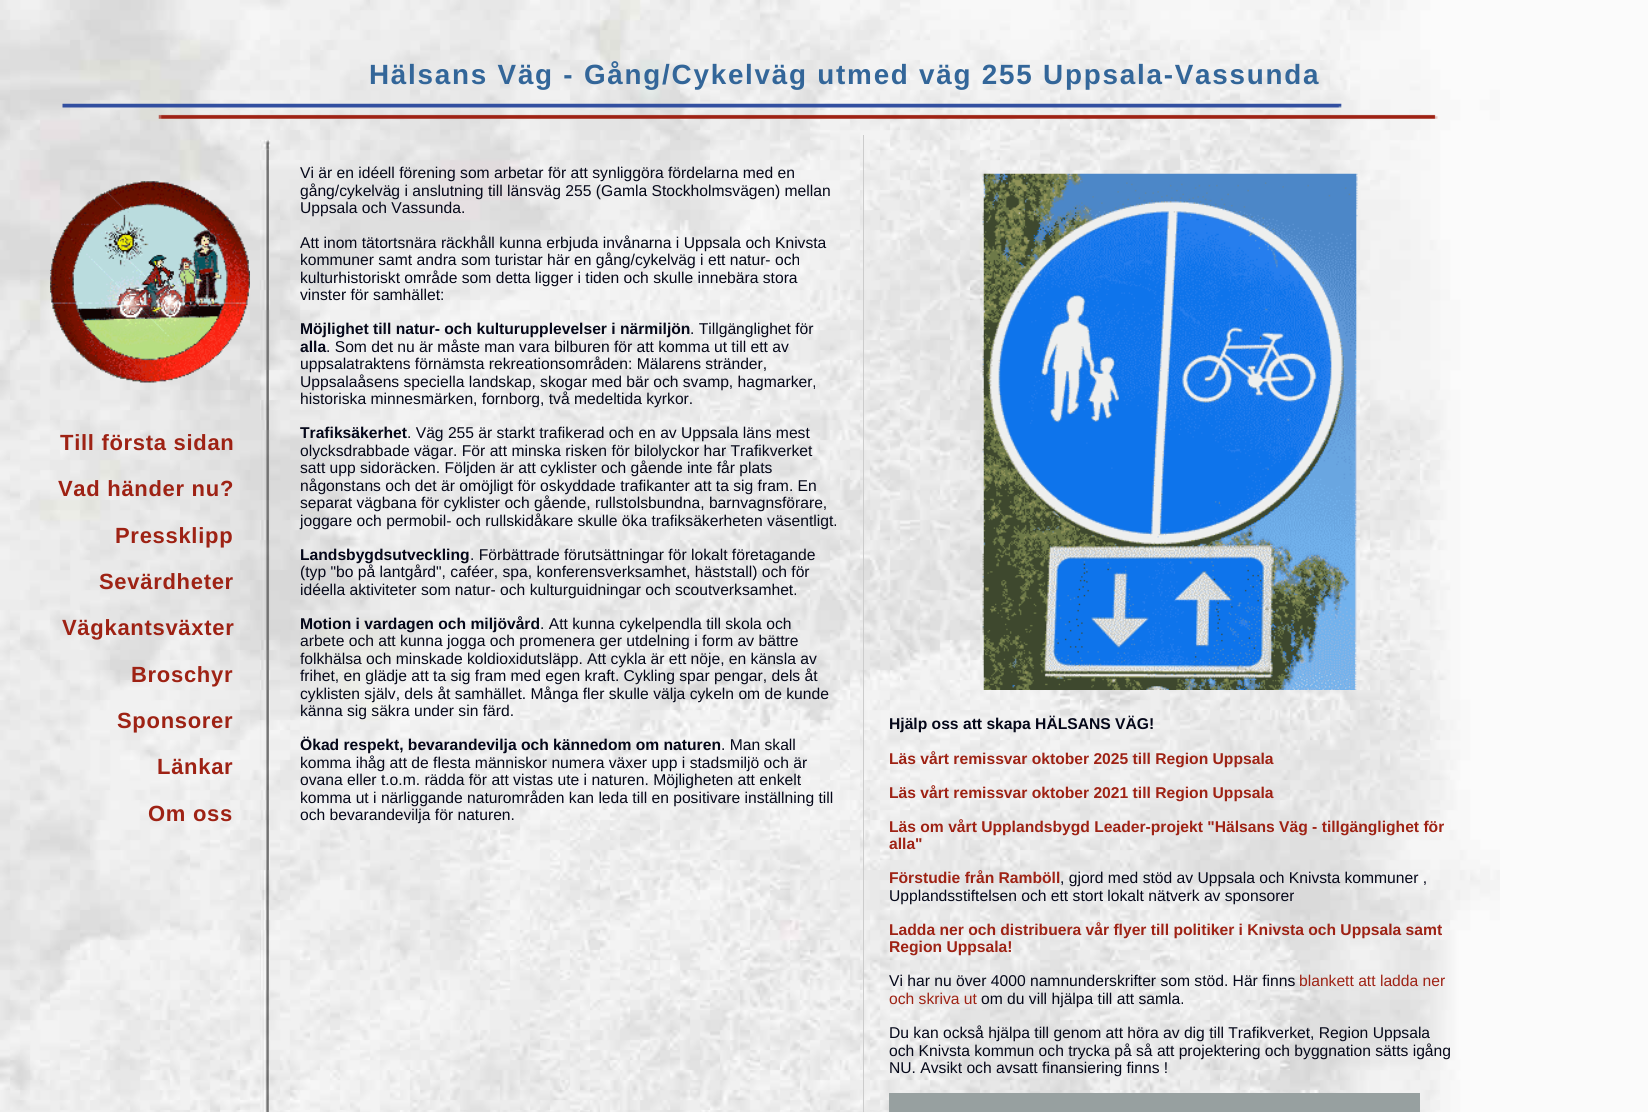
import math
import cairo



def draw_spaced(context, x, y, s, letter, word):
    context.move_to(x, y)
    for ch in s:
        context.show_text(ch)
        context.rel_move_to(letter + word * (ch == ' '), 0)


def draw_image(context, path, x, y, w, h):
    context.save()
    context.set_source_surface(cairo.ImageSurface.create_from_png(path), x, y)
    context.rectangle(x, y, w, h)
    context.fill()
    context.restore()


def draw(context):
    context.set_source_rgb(251 / 255, 251 / 255, 251 / 255)
    context.paint()
    draw_image(context, "images/1.png", 0, 0, 1500, 1112)
    draw_image(context, "images/2.png", 62, 103, 1376, 16)
    draw_image(context, "images/3.png", 50, 181, 200, 202)
    context.set_source_rgb(204 / 255, 204 / 255, 204 / 255)
    context.rectangle(863, 135, 1, 977)
    context.fill()
    draw_image(context, "images/4.png", 982, 173, 376, 517)
    context.set_source_rgb(151 / 255, 160 / 255, 160 / 255)
    context.rectangle(889, 1093, 531, 19)
    context.fill()
    context.select_font_face("Liberation Sans", cairo.FontSlant.NORMAL, cairo.FontWeight.BOLD)
    context.set_font_size(27.85)
    context.set_source_rgb(51 / 255, 102 / 255, 153 / 255)
    draw_spaced(context, 369, 84, "Hälsans Väg - Gång/Cykelväg utmed väg 255 Uppsala-Vassunda", 1.75, 0)
    context.set_font_size(22)
    context.set_source_rgb(158 / 255, 34 / 255, 20 / 255)
    draw_spaced(context, 60, 450, "Till första sidan", 0.7, 0)
    draw_spaced(context, 58, 496, "Vad händer nu?", 0.7, 0)
    draw_spaced(context, 115, 543, "Pressklipp", 0.7, 0)
    draw_spaced(context, 99, 589, "Sevärdheter", 0.7, 0)
    draw_spaced(context, 62, 635, "Vägkantsväxter", 0.7, 0)
    draw_spaced(context, 131, 682, "Broschyr", 0.7, 0)
    draw_spaced(context, 117, 728, "Sponsorer", 0.7, 0)
    draw_spaced(context, 157, 774, "Länkar", 0.7, 0)
    draw_spaced(context, 148, 821, "Om oss", 0.7, 0)
    context.select_font_face("Liberation Sans")
    context.set_font_size(15.65)
    context.set_source_rgb(4 / 255, 7 / 255, 25 / 255)
    context.move_to(300, 178)
    context.show_text("Vi är en idéell förening som arbetar för att synliggöra fördelarna med en")
    context.move_to(300, 196)
    context.show_text("gång/cykelväg i anslutning till länsväg 255 (Gamla Stockholmsvägen) mellan")
    context.move_to(300, 213)
    context.show_text("Uppsala och Vassunda.")
    context.move_to(300, 248)
    context.show_text("Att inom tätortsnära räckhåll kunna erbjuda invånarna i Uppsala och Knivsta")
    context.move_to(300, 265)
    context.show_text("kommuner samt andra som turistar här en gång/cykelväg i ett natur- och")
    context.move_to(300, 283)
    context.show_text("kulturhistoriskt område som detta ligger i tiden och skulle innebära stora")
    context.move_to(300, 300)
    context.show_text("vinster för samhället:")
    context.select_font_face("Liberation Sans", cairo.FontSlant.NORMAL, cairo.FontWeight.BOLD)
    context.move_to(300, 334)
    context.show_text("Möjlighet till natur- och kulturupplevelser i närmiljön")
    context.select_font_face("Liberation Sans")
    context.move_to(690, 334)
    context.show_text(". Tillgänglighet för")
    context.select_font_face("Liberation Sans", cairo.FontSlant.NORMAL, cairo.FontWeight.BOLD)
    context.move_to(300, 352)
    context.show_text("alla")
    context.select_font_face("Liberation Sans")
    context.move_to(326, 352)
    context.show_text(". Som det nu är måste man vara bilburen för att komma ut till ett av")
    context.move_to(300, 369)
    context.show_text("uppsalatraktens förnämsta rekreationsområden: Mälarens stränder,")
    context.move_to(300, 387)
    context.show_text("Uppsalaåsens speciella landskap, skogar med bär och svamp, hagmarker,")
    context.move_to(300, 404)
    context.show_text("historiska minnesmärken, fornborg, två medeltida kyrkor.")
    context.select_font_face("Liberation Sans", cairo.FontSlant.NORMAL, cairo.FontWeight.BOLD)
    context.move_to(300, 438)
    context.show_text("Trafiksäkerhet")
    context.select_font_face("Liberation Sans")
    context.move_to(407, 438)
    context.show_text(". Väg 255 är starkt trafikerad och en av Uppsala läns mest")
    context.move_to(300, 456)
    context.show_text("olycksdrabbade vägar. För att minska risken för bilolyckor har Trafikverket")
    context.move_to(300, 473)
    context.show_text("satt upp sidoräcken. Följden är att cyklister och gående inte får plats")
    context.move_to(300, 491)
    context.show_text("någonstans och det är omöjligt för oskyddade trafikanter att ta sig fram. En")
    context.move_to(300, 508)
    context.show_text("separat vägbana för cyklister och gående, rullstolsbundna, barnvagnsförare,")
    context.move_to(300, 526)
    context.show_text("joggare och permobil- och rullskidåkare skulle öka trafiksäkerheten väsentligt.")
    context.select_font_face("Liberation Sans", cairo.FontSlant.NORMAL, cairo.FontWeight.BOLD)
    context.move_to(300, 560)
    context.show_text("Landsbygdsutveckling")
    context.select_font_face("Liberation Sans")
    context.move_to(470, 560)
    context.show_text(". Förbättrade förutsättningar för lokalt företagande")
    context.move_to(300, 577)
    context.show_text("(typ \"bo på lantgård\", caféer, spa, konferensverksamhet, häststall) och för")
    context.move_to(300, 595)
    context.show_text("idéella aktiviteter som natur- och kulturguidningar och scoutverksamhet.")
    context.select_font_face("Liberation Sans", cairo.FontSlant.NORMAL, cairo.FontWeight.BOLD)
    context.move_to(300, 629)
    context.show_text("Motion i vardagen och miljövård")
    context.select_font_face("Liberation Sans")
    context.move_to(540, 629)
    context.show_text(". Att kunna cykelpendla till skola och")
    context.move_to(300, 646)
    context.show_text("arbete och att kunna jogga och promenera ger utdelning i form av bättre")
    context.move_to(300, 664)
    context.show_text("folkhälsa och minskade koldioxidutsläpp. Att cykla är ett nöje, en känsla av")
    context.move_to(300, 681)
    context.show_text("frihet, en glädje att ta sig fram med egen kraft. Cykling spar pengar, dels åt")
    context.move_to(300, 699)
    context.show_text("cyklisten själv, dels åt samhället. Många fler skulle välja cykeln om de kunde")
    context.move_to(300, 716)
    context.show_text("känna sig säkra under sin färd.")
    context.select_font_face("Liberation Sans", cairo.FontSlant.NORMAL, cairo.FontWeight.BOLD)
    context.move_to(300, 750)
    context.show_text("Ökad respekt, bevarandevilja och kännedom om naturen")
    context.select_font_face("Liberation Sans")
    context.move_to(721, 750)
    context.show_text(". Man skall")
    context.move_to(300, 768)
    context.show_text("komma ihåg att de flesta människor numera växer upp i stadsmiljö och är")
    context.move_to(300, 785)
    context.show_text("ovana eller t.o.m. rädda för att vistas ute i naturen. Möjligheten att enkelt")
    context.move_to(300, 803)
    context.show_text("komma ut i närliggande naturområden kan leda till en positivare inställning till")
    context.move_to(300, 820)
    context.show_text("och bevarandevilja för naturen.")
    context.select_font_face("Liberation Sans", cairo.FontSlant.NORMAL, cairo.FontWeight.BOLD)
    context.move_to(889, 729)
    context.show_text("Hjälp oss att skapa HÄLSANS VÄG!")
    context.set_source_rgb(158 / 255, 34 / 255, 20 / 255)
    context.move_to(889, 764)
    context.show_text("Läs vårt remissvar oktober 2025 till Region Uppsala")
    context.move_to(889, 798)
    context.show_text("Läs vårt remissvar oktober 2021 till Region Uppsala")
    context.move_to(889, 832)
    context.show_text("Läs om vårt Upplandsbygd Leader-projekt \"Hälsans Väg - tillgänglighet för")
    context.move_to(889, 849)
    context.show_text("alla\"")
    context.move_to(889, 883)
    context.show_text("Förstudie från Ramböll")
    context.select_font_face("Liberation Sans")
    context.set_source_rgb(4 / 255, 7 / 255, 25 / 255)
    context.move_to(1060, 883)
    context.show_text(", gjord med stöd av Uppsala och Knivsta kommuner ,")
    context.move_to(889, 901)
    context.show_text("Upplandsstiftelsen och ett stort lokalt nätverk av sponsorer")
    context.select_font_face("Liberation Sans", cairo.FontSlant.NORMAL, cairo.FontWeight.BOLD)
    context.set_source_rgb(158 / 255, 34 / 255, 20 / 255)
    context.move_to(889, 935)
    context.show_text("Ladda ner och distribuera vår flyer till politiker i Knivsta och Uppsala samt")
    context.move_to(889, 952)
    context.show_text("Region Uppsala!")
    context.select_font_face("Liberation Sans")
    context.set_source_rgb(4 / 255, 7 / 255, 25 / 255)
    context.move_to(889, 986)
    context.show_text("Vi har nu över 4000 namnunderskrifter som stöd. Här finns")
    context.set_source_rgb(158 / 255, 34 / 255, 20 / 255)
    context.move_to(1299, 986)
    context.show_text("blankett att ladda ner")
    context.move_to(889, 1004)
    context.show_text("och skriva ut")
    context.set_source_rgb(4 / 255, 7 / 255, 25 / 255)
    context.move_to(981, 1004)
    context.show_text("om du vill hjälpa till att samla.")
    context.move_to(889, 1038)
    context.show_text("Du kan också hjälpa till genom att höra av dig till Trafikverket, Region Uppsala")
    context.move_to(889, 1056)
    context.show_text("och Knivsta kommun och trycka på så att projektering och byggnation sätts igång")
    context.move_to(889, 1073)
    context.show_text("NU. Avsikt och avsatt finansiering finns !")


surface = cairo.ImageSurface(cairo.Format.RGB24, 1648, 1112)
context = cairo.Context(surface)
options = cairo.FontOptions()
options.set_hint_metrics(cairo.HintMetrics.OFF)
options.set_hint_style(cairo.HintStyle.NONE)
context.set_font_options(options)
context.set_miter_limit(4)
draw(context)
surface.write_to_png("out.png")
